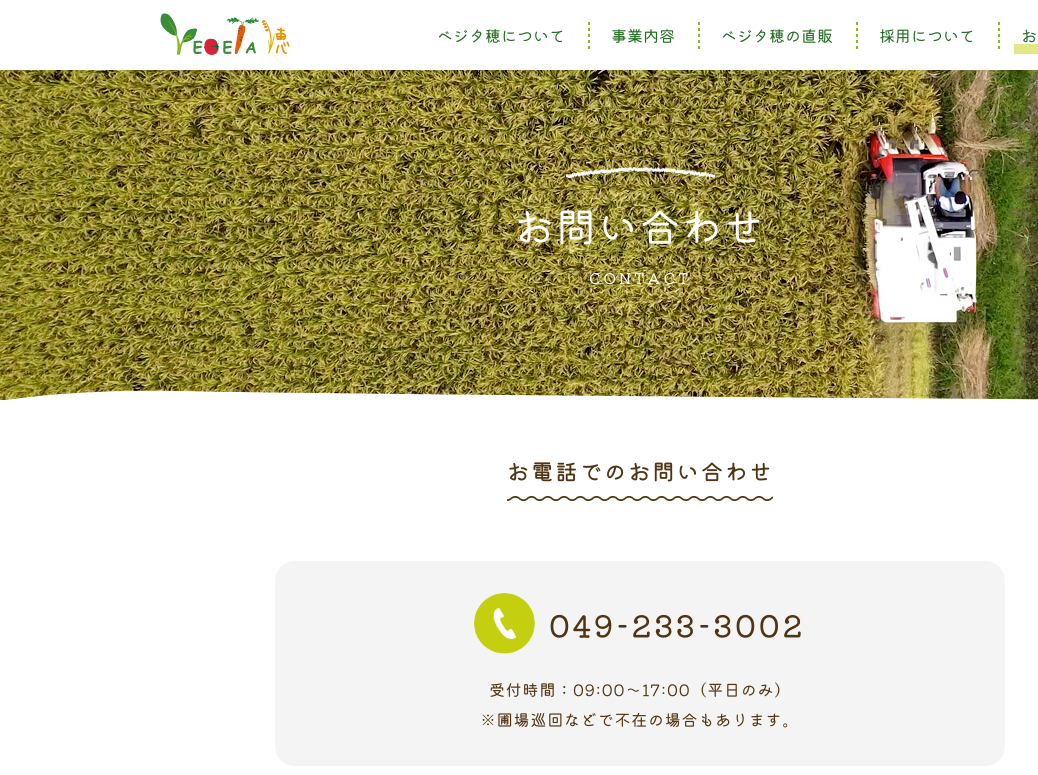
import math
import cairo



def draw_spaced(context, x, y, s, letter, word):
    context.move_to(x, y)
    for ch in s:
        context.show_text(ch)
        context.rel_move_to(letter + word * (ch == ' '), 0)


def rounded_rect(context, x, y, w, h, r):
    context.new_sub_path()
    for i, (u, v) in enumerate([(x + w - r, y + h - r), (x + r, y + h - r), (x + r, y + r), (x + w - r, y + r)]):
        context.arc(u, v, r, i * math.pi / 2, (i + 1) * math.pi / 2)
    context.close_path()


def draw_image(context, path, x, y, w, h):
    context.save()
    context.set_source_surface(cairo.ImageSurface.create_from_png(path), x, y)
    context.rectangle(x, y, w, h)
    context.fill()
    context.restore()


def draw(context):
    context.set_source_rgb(1, 1, 1)
    context.paint()
    draw_image(context, "images/1.png", 160, 13, 130, 42)
    draw_image(context, "images/2.png", 588, 22, 2, 27)
    draw_image(context, "images/2.png", 698, 22, 2, 27)
    draw_image(context, "images/2.png", 856, 22, 2, 27)
    draw_image(context, "images/2.png", 998, 22, 2, 27)
    context.set_source_rgb(226 / 255, 232 / 255, 135 / 255)
    context.rectangle(1014, 44, 24, 10)
    context.fill()
    draw_image(context, "images/3.png", 0, 70, 1038, 330)
    draw_image(context, "images/4.png", 566, 167, 149, 11)
    context.set_source_rgb(1, 1, 1)
    context.new_path()
    context.move_to(0, 401)
    context.curve_to(0, 401, 64, 389, 180, 391)
    context.curve_to(357, 395, 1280, 401, 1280, 401)
    context.close_path()
    context.fill()
    draw_image(context, "images/5.png", 507, 496, 266, 5)
    context.set_source_rgb(244 / 255, 244 / 255, 244 / 255)
    rounded_rect(context, 275, 561, 730, 205, 20)
    context.fill()
    draw_image(context, "images/6.png", 474, 593, 61, 61)
    context.select_font_face("Kiwi Maru")
    context.set_font_size(16)
    context.set_source_rgb(35 / 255, 109 / 255, 35 / 255)
    context.move_to(437, 42)
    context.show_text("ベジタ穂について")
    context.move_to(611, 42)
    context.show_text("事業内容")
    context.move_to(721, 42)
    context.show_text("ベジタ穂の直販")
    context.move_to(879, 42)
    context.show_text("採用について")
    context.move_to(1021, 42)
    context.show_text("お")
    context.set_font_size(40)
    context.set_source_rgb(1, 1, 1)
    draw_spaced(context, 514, 242, "お問い合わせ", 2, 0)
    context.set_font_size(15)
    draw_spaced(context, 589, 284, "CONTACT", 3, 0)
    context.select_font_face("Kiwi Maru Medium")
    context.set_font_size(22)
    context.set_source_rgb(81 / 255, 52 / 255, 18 / 255)
    draw_spaced(context, 507, 480, "お電話でのお問い合わせ", 2.25, 0)
    context.set_font_size(30)
    draw_spaced(context, 549, 637, "049-233-3002", 3, 0)
    context.select_font_face("Kiwi Maru")
    context.set_font_size(16)
    draw_spaced(context, 489, 696, "受付時間：09:00〜17:00（平日のみ）", 0.8, 0)
    draw_spaced(context, 480, 726, "※圃場巡回などで不在の場合もあります。", 0.8, 0)


surface = cairo.ImageSurface(cairo.Format.RGB24, 1038, 775)
context = cairo.Context(surface)
options = cairo.FontOptions()
options.set_hint_metrics(cairo.HintMetrics.OFF)
options.set_hint_style(cairo.HintStyle.NONE)
context.set_font_options(options)
context.set_miter_limit(4)
draw(context)
surface.write_to_png("out.png")
